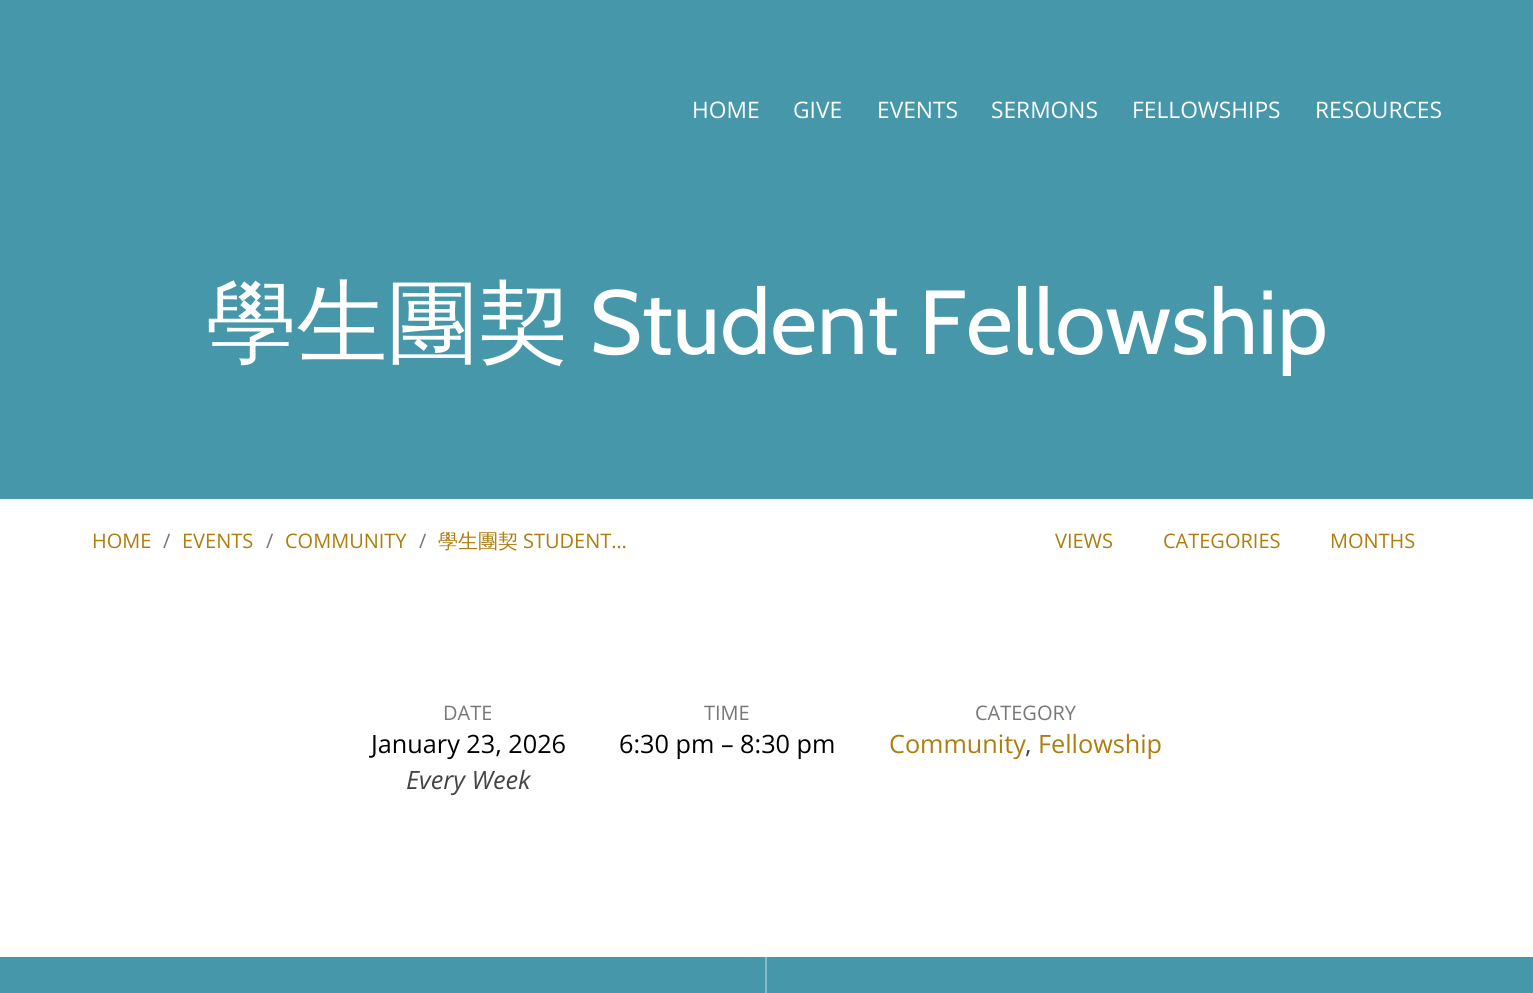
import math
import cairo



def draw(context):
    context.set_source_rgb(1, 1, 1)
    context.paint()
    context.set_source_rgb(71 / 255, 151 / 255, 170 / 255)
    context.rectangle(0, 0, 1533, 499)
    context.fill()
    context.rectangle(0, 957, 1533, 36)
    context.fill()
    context.set_source_rgb(135 / 255, 187 / 255, 200 / 255)
    context.rectangle(765, 957, 2, 36)
    context.fill()
    context.select_font_face("Open Sans")
    context.set_font_size(22.75)
    context.set_source_rgb(1, 1, 1)
    context.move_to(692, 118)
    context.show_text("HOME")
    context.move_to(793, 118)
    context.show_text("GIVE")
    context.move_to(877, 118)
    context.show_text("EVENTS")
    context.move_to(991, 118)
    context.show_text("SERMONS")
    context.move_to(1132, 118)
    context.show_text("FELLOWSHIPS")
    context.move_to(1315, 118)
    context.show_text("RESOURCES")
    context.select_font_face("WenQuanYi Zen Hei Medium")
    context.set_font_size(90.75)
    context.move_to(206, 354)
    context.show_text("學生團契")
    context.select_font_face("Cabin")
    context.move_to(589, 354)
    context.show_text("Student Fellowship")
    context.select_font_face("Open Sans")
    context.set_font_size(20)
    context.set_source_rgb(173 / 255, 125 / 255, 14 / 255)
    context.move_to(92, 548)
    context.show_text("HOME")
    context.set_source_rgb(119 / 255, 119 / 255, 119 / 255)
    context.move_to(163, 548)
    context.show_text("/")
    context.set_source_rgb(173 / 255, 125 / 255, 14 / 255)
    context.move_to(182, 548)
    context.show_text("EVENTS")
    context.set_source_rgb(119 / 255, 119 / 255, 119 / 255)
    context.move_to(266, 548)
    context.show_text("/")
    context.set_source_rgb(173 / 255, 125 / 255, 14 / 255)
    context.move_to(285, 548)
    context.show_text("COMMUNITY")
    context.set_source_rgb(119 / 255, 119 / 255, 119 / 255)
    context.move_to(419, 548)
    context.show_text("/")
    context.select_font_face("WenQuanYi Zen Hei Medium")
    context.set_source_rgb(173 / 255, 125 / 255, 14 / 255)
    context.move_to(438, 548)
    context.show_text("學生團契")
    context.select_font_face("Open Sans")
    context.move_to(523, 548)
    context.show_text("STUDENT…")
    context.move_to(1055, 548)
    context.show_text("VIEWS")
    context.move_to(1163, 548)
    context.show_text("CATEGORIES")
    context.move_to(1330, 548)
    context.show_text("MONTHS")
    context.set_source_rgb(119 / 255, 119 / 255, 119 / 255)
    context.move_to(443, 720)
    context.show_text("DATE")
    context.set_font_size(25.25)
    context.set_source_rgb(0, 0, 0)
    context.move_to(371, 753)
    context.show_text("January 23, 2026")
    context.select_font_face("Open Sans", cairo.FontSlant.ITALIC)
    context.set_source_rgb(68 / 255, 68 / 255, 68 / 255)
    context.move_to(406, 789)
    context.show_text("Every Week")
    context.select_font_face("Open Sans")
    context.set_font_size(20)
    context.set_source_rgb(119 / 255, 119 / 255, 119 / 255)
    context.move_to(704, 720)
    context.show_text("TIME")
    context.set_font_size(25.25)
    context.set_source_rgb(0, 0, 0)
    context.move_to(619, 753)
    context.show_text("6:30 pm – 8:30 pm")
    context.set_font_size(20)
    context.set_source_rgb(119 / 255, 119 / 255, 119 / 255)
    context.move_to(975, 720)
    context.show_text("CATEGORY")
    context.set_font_size(25.25)
    context.set_source_rgb(173 / 255, 125 / 255, 14 / 255)
    context.move_to(889, 753)
    context.show_text("Community")
    context.set_source_rgb(68 / 255, 68 / 255, 68 / 255)
    context.move_to(1025, 753)
    context.show_text(",")
    context.set_source_rgb(173 / 255, 125 / 255, 14 / 255)
    context.move_to(1038, 753)
    context.show_text("Fellowship")


surface = cairo.ImageSurface(cairo.Format.RGB24, 1533, 993)
context = cairo.Context(surface)
options = cairo.FontOptions()
options.set_hint_metrics(cairo.HintMetrics.OFF)
options.set_hint_style(cairo.HintStyle.NONE)
context.set_font_options(options)
context.set_miter_limit(4)
draw(context)
surface.write_to_png("out.png")
